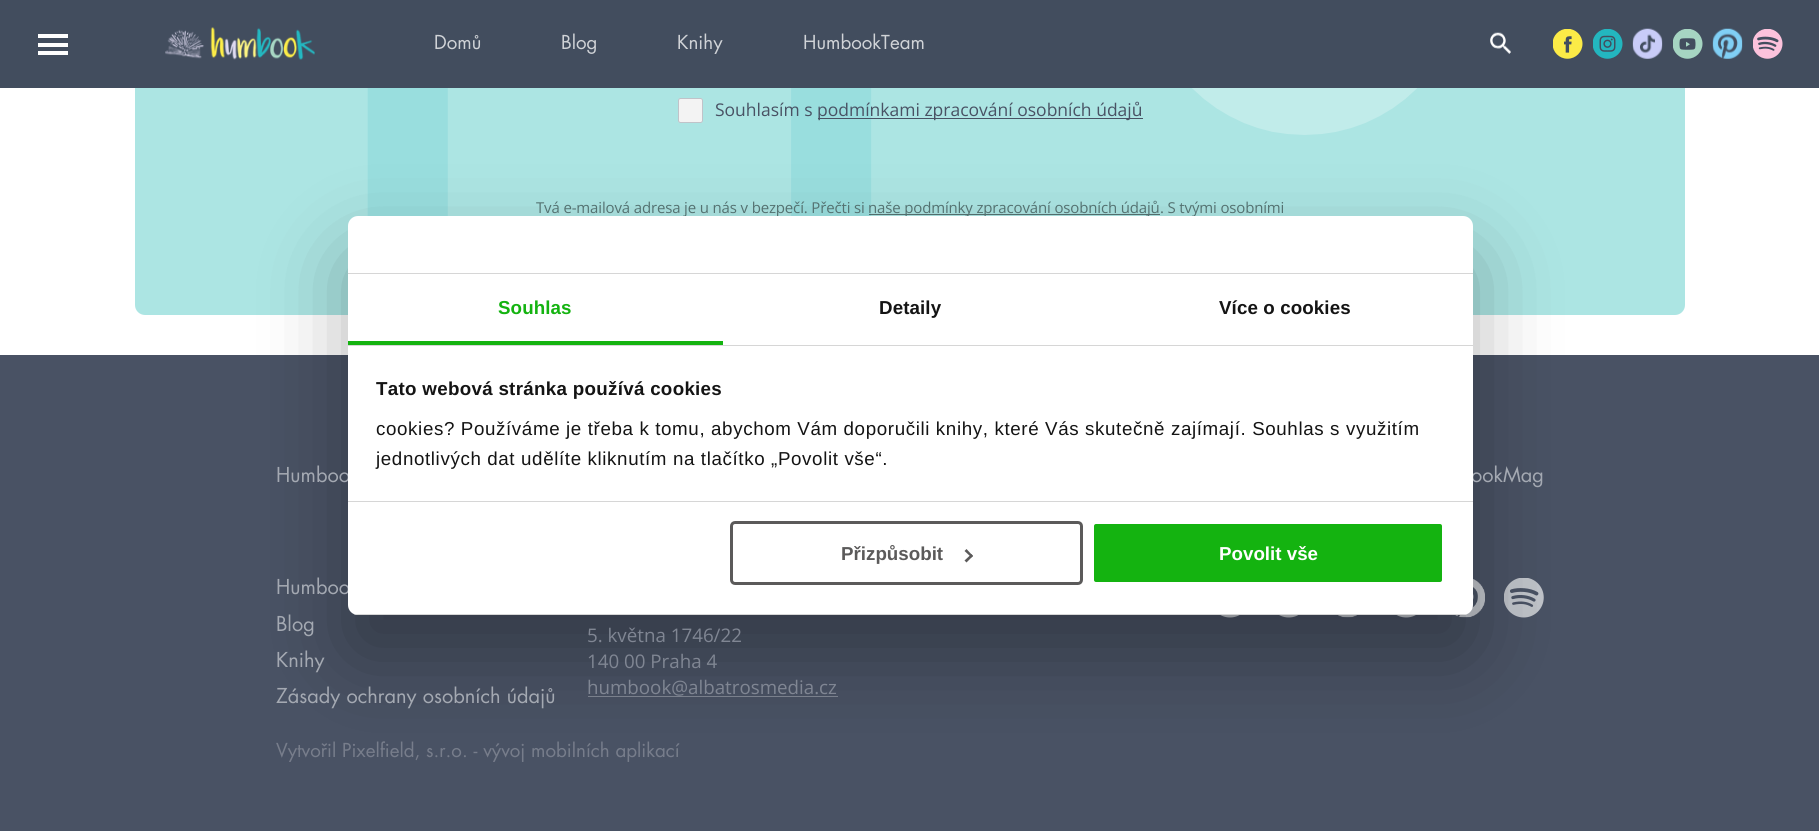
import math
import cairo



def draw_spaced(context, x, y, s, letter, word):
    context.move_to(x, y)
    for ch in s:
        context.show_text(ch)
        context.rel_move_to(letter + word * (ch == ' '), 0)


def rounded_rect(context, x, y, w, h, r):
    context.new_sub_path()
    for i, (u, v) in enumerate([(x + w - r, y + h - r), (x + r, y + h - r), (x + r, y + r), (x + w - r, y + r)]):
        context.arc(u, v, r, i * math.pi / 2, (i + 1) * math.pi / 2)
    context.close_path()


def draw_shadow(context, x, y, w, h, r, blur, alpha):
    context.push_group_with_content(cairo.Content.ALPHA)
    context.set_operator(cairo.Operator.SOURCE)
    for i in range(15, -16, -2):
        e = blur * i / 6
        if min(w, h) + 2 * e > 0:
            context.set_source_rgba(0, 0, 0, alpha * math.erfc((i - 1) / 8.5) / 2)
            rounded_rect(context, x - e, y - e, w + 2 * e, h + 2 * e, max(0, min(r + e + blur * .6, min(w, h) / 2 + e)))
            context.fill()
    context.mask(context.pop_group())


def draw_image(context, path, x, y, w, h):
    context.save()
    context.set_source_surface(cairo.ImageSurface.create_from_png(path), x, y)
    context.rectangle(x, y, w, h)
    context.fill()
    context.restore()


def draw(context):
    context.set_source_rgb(1, 1, 1)
    context.paint()
    context.set_source_rgb(172 / 255, 229 / 255, 227 / 255)
    rounded_rect(context, 135, -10, 1550, 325, 10)
    context.fill()
    context.set_source_rgb(66 / 255, 77 / 255, 94 / 255)
    context.rectangle(0, 0, 1819, 88)
    context.fill()
    context.set_source_rgb(1, 1, 1)
    context.rectangle(38, 43, 30, 4)
    context.fill()
    context.rectangle(38, 34, 30, 4)
    context.fill()
    context.rectangle(38, 51, 30, 4)
    context.fill()
    draw_image(context, "images/1.png", 165, 27, 150, 33)
    draw_image(context, "images/2.png", 1490, 32, 21, 22)
    draw_image(context, "images/3.png", 1553, 29, 30, 30)
    draw_image(context, "images/4.png", 1593, 29, 30, 30)
    draw_image(context, "images/5.png", 1632, 28, 31, 31)
    draw_image(context, "images/6.png", 1673, 29, 30, 30)
    draw_image(context, "images/7.png", 1712, 28, 31, 31)
    draw_image(context, "images/8.png", 1753, 29, 30, 30)
    draw_image(context, "images/9.png", 367, 88, 1050, 128)
    context.set_source_rgb(243 / 255, 243 / 255, 243 / 255)
    rounded_rect(context, 678, 98, 25, 25, 2.5)
    context.fill()
    rounded_rect(context, 678.5, 98.5, 24, 24, 2)
    context.set_source_rgba(73 / 255, 82 / 255, 100 / 255, 0.3)
    context.set_line_width(1)
    context.stroke()
    context.set_source_rgb(73 / 255, 82 / 255, 100 / 255)
    context.rectangle(818, 118, 325, 1)
    context.fill()
    context.set_source_rgba(0, 0, 0, 0.5)
    context.rectangle(869, 214, 291, 1)
    context.fill()
    context.set_source_rgb(73 / 255, 82 / 255, 100 / 255)
    context.rectangle(0, 355, 1819, 476)
    context.fill()
    draw_image(context, "images/10.png", 1220, 615, 20, 3)
    draw_image(context, "images/11.png", 1279, 615, 20, 3)
    draw_image(context, "images/12.png", 1338, 615, 19, 3)
    draw_image(context, "images/13.png", 1396, 615, 20, 3)
    draw_image(context, "images/14.png", 1455, 579, 30, 39)
    draw_image(context, "images/15.png", 1504, 578, 40, 40)
    context.set_source_rgb(128 / 255, 134 / 255, 147 / 255)
    context.rectangle(588, 696, 250, 1)
    context.fill()
    context.set_source_rgb(0, 0, 0)
    draw_shadow(context, 348, 256, 1125, 399, 10, 42.5, 0.3)
    context.select_font_face("Futura")
    context.set_font_size(18.75)
    context.set_source_rgb(208 / 255, 211 / 255, 215 / 255)
    context.move_to(434, 49)
    context.show_text("Domů")
    context.move_to(561, 49)
    context.show_text("Blog")
    context.move_to(677, 49)
    context.show_text("Knihy")
    context.move_to(803, 49)
    context.show_text("HumbookTeam")
    context.select_font_face("Open Sans")
    context.set_font_size(17.5)
    context.set_source_rgb(73 / 255, 82 / 255, 100 / 255)
    context.move_to(715, 116)
    context.show_text("Souhlasím s")
    context.move_to(817, 116)
    context.show_text("podmínkami zpracování osobních údajů")
    context.set_font_size(15)
    context.set_source_rgb(84 / 255, 114 / 255, 113 / 255)
    draw_spaced(context, 536, 213, "Tvá e-mailová adresa je u nás v bezpečí. Přečti si", -0.15, 0)
    draw_spaced(context, 868, 213, "naše podmínky zpracování osobních údajů", -0.15, 0)
    draw_spaced(context, 1160, 213, ". S tvými osobními", -0.15, 0)
    context.select_font_face("Futura")
    context.set_font_size(20)
    context.set_source_rgb(164 / 255, 169 / 255, 178 / 255)
    context.move_to(276, 482)
    context.show_text("Humboo")
    context.move_to(1471, 482)
    context.show_text("ookMag")
    context.move_to(276, 594)
    context.show_text("Humboo")
    context.move_to(276, 631)
    context.show_text("Blog")
    context.move_to(276, 667)
    context.show_text("Knihy")
    context.move_to(276, 703)
    context.show_text("Zásady ochrany osobních údajů")
    context.select_font_face("Open Sans")
    context.set_font_size(18.75)
    context.set_source_rgb(128 / 255, 134 / 255, 147 / 255)
    context.move_to(587, 642)
    context.show_text("5. května 1746/22")
    context.move_to(587, 668)
    context.show_text("140 00 Praha 4")
    context.move_to(587, 694)
    context.show_text("humbook@albatrosmedia.cz")
    context.select_font_face("Futura")
    context.set_source_rgb(119 / 255, 125 / 255, 139 / 255)
    context.move_to(276, 757)
    context.show_text("Vytvořil Pixelfield, s.r.o. - vývoj mobilních aplikací")
    context.set_source_rgb(1, 1, 1)
    rounded_rect(context, 348, 216, 1125, 399, 10)
    context.fill()
    context.set_source_rgb(214 / 255, 214 / 255, 214 / 255)
    context.rectangle(348, 273, 1125, 1)
    context.fill()
    context.rectangle(348, 345, 1125, 1)
    context.fill()
    context.set_source_rgb(20 / 255, 179 / 255, 16 / 255)
    context.rectangle(348, 341, 375, 4)
    context.fill()
    context.select_font_face("Liberation Sans", cairo.FontSlant.NORMAL, cairo.FontWeight.BOLD)
    draw_spaced(context, 498, 314, "Souhlas", 0.1, 0)
    context.set_source_rgb(20 / 255, 20 / 255, 20 / 255)
    draw_spaced(context, 879, 314, "Detaily", 0.1, 0)
    draw_spaced(context, 1219, 314, "Více o cookies", 0.1, 0)
    context.set_source_rgb(214 / 255, 214 / 255, 214 / 255)
    context.rectangle(348, 501, 1125, 1)
    context.fill()
    context.set_source_rgb(20 / 255, 20 / 255, 20 / 255)
    draw_spaced(context, 376, 395, "Tato webová stránka používá cookies", 0.3, 0)
    context.select_font_face("Liberation Sans")
    draw_spaced(context, 376, 435, "cookies? Používáme je třeba k tomu, abychom Vám doporučili knihy, které Vás skutečně zajímají. Souhlas s využitím", 0.62, 0)
    draw_spaced(context, 376, 465, "jednotlivých dat udělíte kliknutím na tlačítko „Povolit vše“.", 0.62, 0)
    context.save()
    rounded_rect(context, 348, 216, 1125, 399, 10)
    context.clip()
    context.set_source_rgb(214 / 255, 214 / 255, 214 / 255)
    context.rectangle(348, 614, 1125, 1)
    context.fill()
    context.restore()
    rounded_rect(context, 731.5, 522.5, 350, 61, 3.5)
    context.set_source_rgb(91 / 255, 90 / 255, 90 / 255)
    context.set_line_width(3)
    context.stroke()
    context.select_font_face("Liberation Sans", cairo.FontSlant.NORMAL, cairo.FontWeight.BOLD)
    context.move_to(841, 560)
    context.show_text("Přizpůsobit")
    context.new_path()
    context.move_to(966.5, 549)
    context.line_to(973, 556)
    context.line_to(971.5, 557.5)
    context.line_to(964.5, 551)
    context.close_path()
    context.fill()
    context.new_path()
    context.move_to(971.5, 554)
    context.line_to(973, 556)
    context.line_to(966.5, 562.5)
    context.line_to(964.5, 560.5)
    context.close_path()
    context.fill()
    context.set_source_rgb(20 / 255, 179 / 255, 16 / 255)
    rounded_rect(context, 1092.5, 522.5, 351, 61, 3.5)
    context.fill_preserve()
    context.set_source_rgb(1, 1, 1)
    context.stroke()
    context.move_to(1219, 560)
    context.show_text("Povolit vše")


surface = cairo.ImageSurface(cairo.Format.RGB24, 1819, 831)
context = cairo.Context(surface)
options = cairo.FontOptions()
options.set_hint_metrics(cairo.HintMetrics.OFF)
options.set_hint_style(cairo.HintStyle.NONE)
context.set_font_options(options)
context.set_miter_limit(4)
draw(context)
surface.write_to_png("out.png")
